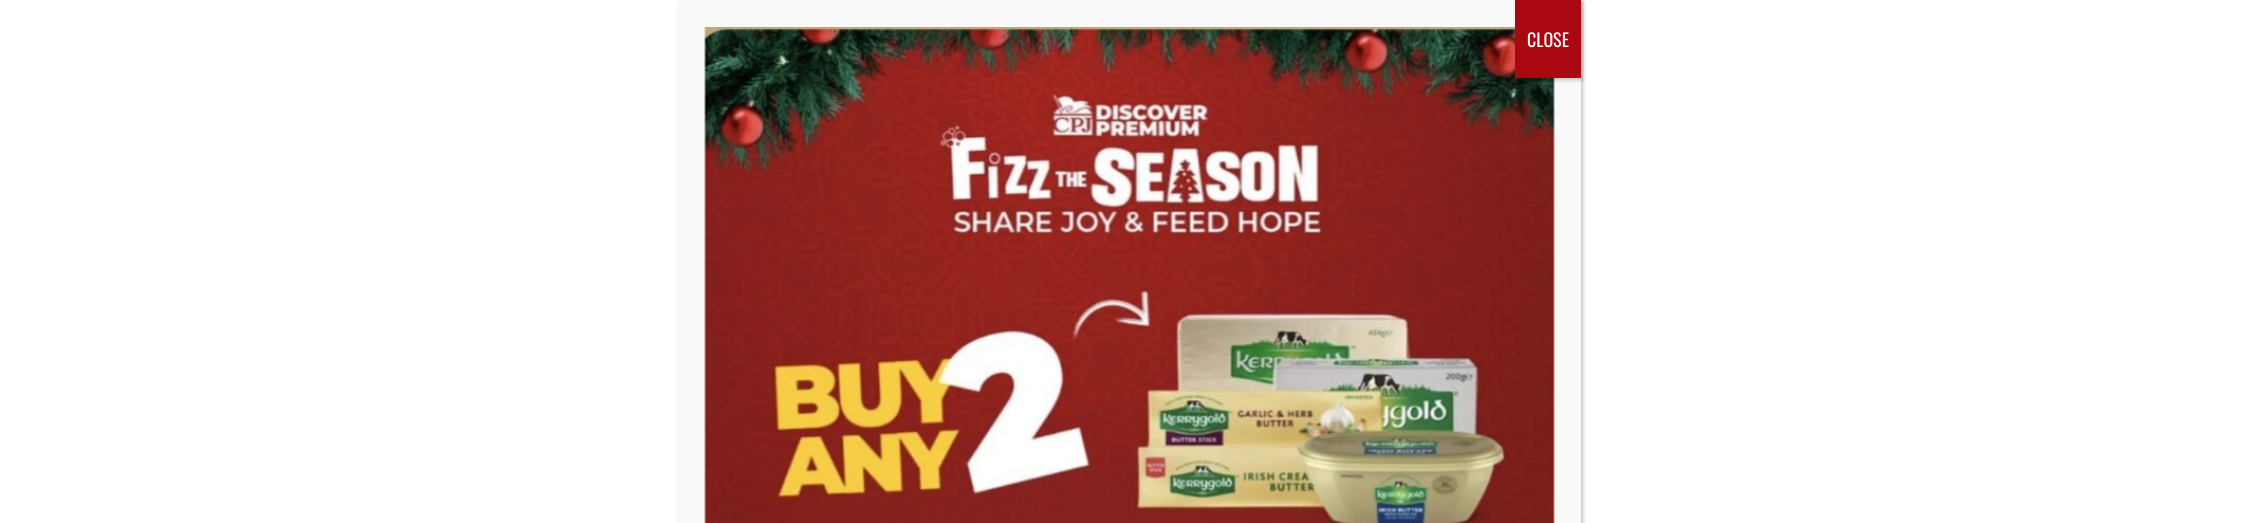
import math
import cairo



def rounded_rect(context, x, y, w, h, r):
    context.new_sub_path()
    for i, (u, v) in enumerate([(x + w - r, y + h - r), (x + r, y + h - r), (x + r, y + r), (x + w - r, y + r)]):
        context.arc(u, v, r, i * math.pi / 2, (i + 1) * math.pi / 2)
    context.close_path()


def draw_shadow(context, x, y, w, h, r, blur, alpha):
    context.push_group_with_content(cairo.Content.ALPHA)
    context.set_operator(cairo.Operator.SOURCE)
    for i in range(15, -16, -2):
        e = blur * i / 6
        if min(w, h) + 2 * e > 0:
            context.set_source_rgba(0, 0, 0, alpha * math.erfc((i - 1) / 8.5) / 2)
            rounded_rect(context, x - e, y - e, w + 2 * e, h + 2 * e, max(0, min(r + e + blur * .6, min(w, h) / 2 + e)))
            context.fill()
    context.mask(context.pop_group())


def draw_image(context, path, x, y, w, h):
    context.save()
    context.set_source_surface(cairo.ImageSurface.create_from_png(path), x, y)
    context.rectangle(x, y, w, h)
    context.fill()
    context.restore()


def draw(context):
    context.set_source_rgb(1, 1, 1)
    context.paint()
    context.set_source_rgb(2 / 255, 2 / 255, 2 / 255)
    draw_shadow(context, 680, 2, 903, 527, 0, 2, 0.23)
    context.set_source_rgb(249 / 255, 249 / 255, 249 / 255)
    context.rectangle(678, 0, 903, 523)
    context.fill()
    draw_image(context, "images/1.png", 704, 27, 851, 496)
    context.set_source_rgb(2 / 255, 2 / 255, 2 / 255)
    draw_shadow(context, 1517, 2, 66, 78, 0, 2, 0.23)
    context.set_source_rgb(170 / 255, 8 / 255, 16 / 255)
    context.rectangle(1515, 0, 66, 78)
    context.fill()
    context.select_font_face("Oswald")
    context.set_font_size(18)
    context.set_source_rgb(1, 1, 1)
    context.move_to(1527, 47)
    context.show_text("CLOSE")


surface = cairo.ImageSurface(cairo.Format.RGB24, 2258, 523)
context = cairo.Context(surface)
options = cairo.FontOptions()
options.set_hint_metrics(cairo.HintMetrics.OFF)
options.set_hint_style(cairo.HintStyle.NONE)
context.set_font_options(options)
context.set_miter_limit(4)
draw(context)
surface.write_to_png("out.png")
